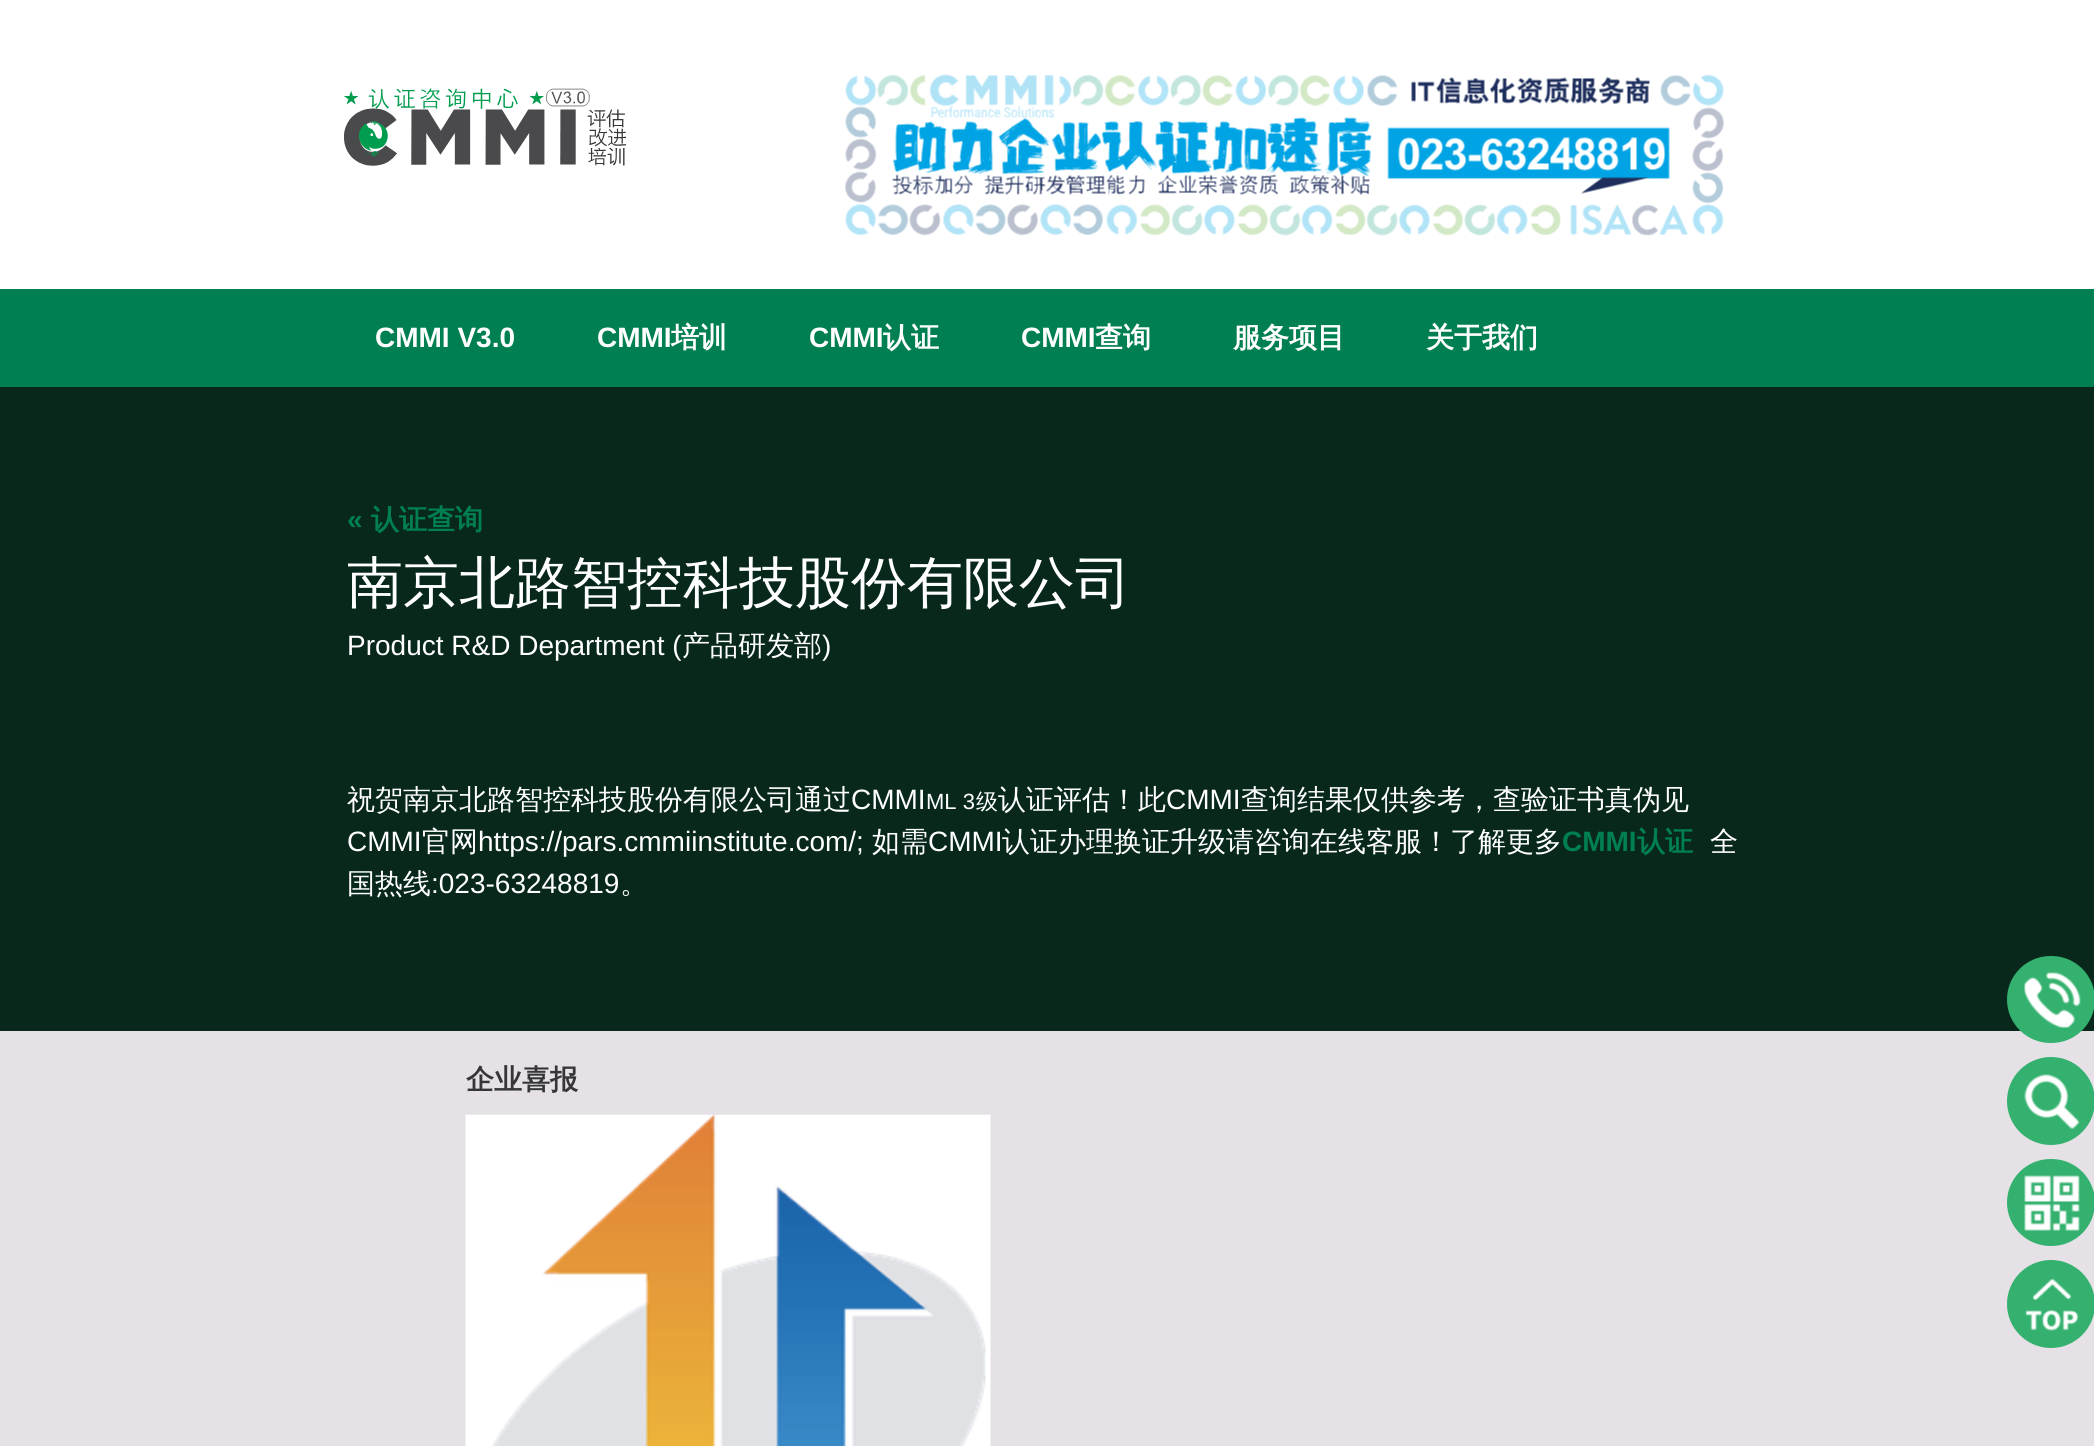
import math
import cairo



def rounded_rect(context, x, y, w, h, r):
    context.new_sub_path()
    for i, (u, v) in enumerate([(x + w - r, y + h - r), (x + r, y + h - r), (x + r, y + r), (x + w - r, y + r)]):
        context.arc(u, v, r, i * math.pi / 2, (i + 1) * math.pi / 2)
    context.close_path()


def draw_image(context, path, x, y, w, h):
    context.save()
    context.set_source_surface(cairo.ImageSurface.create_from_png(path), x, y)
    context.rectangle(x, y, w, h)
    context.fill()
    context.restore()


def draw(context):
    context.set_source_rgb(229 / 255, 225 / 255, 230 / 255)
    context.paint()
    context.set_source_rgb(1, 1, 1)
    context.rectangle(0, 0, 2094, 289)
    context.fill()
    draw_image(context, "images/1.png", 344, 88, 283, 78)
    draw_image(context, "images/2.png", 845, 74, 879, 162)
    context.set_source_rgb(0, 128 / 255, 80 / 255)
    context.rectangle(0, 289, 2094, 98)
    context.fill()
    context.set_source_rgb(7 / 255, 40 / 255, 27 / 255)
    context.rectangle(0, 387, 2094, 644)
    context.fill()
    draw_image(context, "images/3.png", 465, 1114, 526, 332)
    context.set_source_rgb(52 / 255, 177 / 255, 111 / 255)
    rounded_rect(context, 2007, 956, 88, 87, 43.5)
    context.fill()
    draw_image(context, "images/4.png", 2024, 972, 57, 56)
    context.arc(2051, 1101, 44, 0, 2 * math.pi)
    context.fill()
    draw_image(context, "images/5.png", 2024, 1074, 56, 56)
    rounded_rect(context, 2007, 1159, 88, 87, 43.5)
    context.fill()
    draw_image(context, "images/6.png", 2024, 1175, 56, 56)
    context.arc(2051, 1304, 44, 0, 2 * math.pi)
    context.fill()
    draw_image(context, "images/7.png", 2025, 1278, 54, 53)
    context.select_font_face("Liberation Sans", cairo.FontSlant.NORMAL, cairo.FontWeight.BOLD)
    context.set_font_size(28)
    context.set_source_rgb(1, 1, 1)
    context.move_to(375, 347)
    context.show_text("CMMI V3.0")
    context.move_to(597, 347)
    context.show_text("CMMI")
    context.select_font_face("WenQuanYi Zen Hei", cairo.FontSlant.NORMAL, cairo.FontWeight.BOLD)
    context.move_to(671, 347)
    context.show_text("培训")
    context.select_font_face("Liberation Sans", cairo.FontSlant.NORMAL, cairo.FontWeight.BOLD)
    context.move_to(809, 347)
    context.show_text("CMMI")
    context.select_font_face("WenQuanYi Zen Hei", cairo.FontSlant.NORMAL, cairo.FontWeight.BOLD)
    context.move_to(883, 347)
    context.show_text("认证")
    context.select_font_face("Liberation Sans", cairo.FontSlant.NORMAL, cairo.FontWeight.BOLD)
    context.move_to(1021, 347)
    context.show_text("CMMI")
    context.select_font_face("WenQuanYi Zen Hei", cairo.FontSlant.NORMAL, cairo.FontWeight.BOLD)
    context.move_to(1095, 347)
    context.show_text("查询")
    context.move_to(1233, 347)
    context.show_text("服务项目")
    context.move_to(1426, 347)
    context.show_text("关于我们")
    context.select_font_face("Liberation Sans", cairo.FontSlant.NORMAL, cairo.FontWeight.BOLD)
    context.set_source_rgb(0, 128 / 255, 80 / 255)
    context.move_to(347, 529)
    context.show_text("«")
    context.select_font_face("WenQuanYi Zen Hei", cairo.FontSlant.NORMAL, cairo.FontWeight.BOLD)
    context.move_to(371, 529)
    context.show_text("认证查询")
    context.select_font_face("WenQuanYi Zen Hei Medium")
    context.set_font_size(56)
    context.set_source_rgb(1, 1, 1)
    context.move_to(347, 602)
    context.show_text("南京北路智控科技股份有限公司")
    context.select_font_face("Liberation Sans")
    context.set_font_size(28)
    context.move_to(347, 655)
    context.show_text("Product R&D Department (")
    context.select_font_face("WenQuanYi Zen Hei Medium")
    context.move_to(682, 655)
    context.show_text("产品研发部")
    context.select_font_face("Liberation Sans")
    context.move_to(822, 655)
    context.show_text(")")
    context.select_font_face("WenQuanYi Zen Hei Medium")
    context.move_to(347, 809)
    context.show_text("祝贺南京北路智控科技股份有限公司通过")
    context.select_font_face("Liberation Sans")
    context.move_to(851, 809)
    context.show_text("CMMI")
    context.set_font_size(22)
    context.move_to(926, 809)
    context.show_text("ML 3")
    context.select_font_face("WenQuanYi Zen Hei Medium")
    context.move_to(976, 809)
    context.show_text("级")
    context.set_font_size(28)
    context.move_to(998, 809)
    context.show_text("认证评估！此")
    context.select_font_face("Liberation Sans")
    context.move_to(1166, 809)
    context.show_text("CMMI")
    context.select_font_face("WenQuanYi Zen Hei Medium")
    context.move_to(1241, 809)
    context.show_text("查询结果仅供参考，查验证书真伪见")
    context.select_font_face("Liberation Sans")
    context.move_to(347, 851)
    context.show_text("CMMI")
    context.select_font_face("WenQuanYi Zen Hei Medium")
    context.move_to(422, 851)
    context.show_text("官网")
    context.select_font_face("Liberation Sans")
    context.move_to(478, 851)
    context.show_text("https://pars.cmmiinstitute.com/;")
    context.select_font_face("WenQuanYi Zen Hei Medium")
    context.move_to(872, 851)
    context.show_text("如需")
    context.select_font_face("Liberation Sans")
    context.move_to(928, 851)
    context.show_text("CMMI")
    context.select_font_face("WenQuanYi Zen Hei Medium")
    context.move_to(1002, 851)
    context.show_text("认证办理换证升级请咨询在线客服！了解更多")
    context.select_font_face("Liberation Sans", cairo.FontSlant.NORMAL, cairo.FontWeight.BOLD)
    context.set_source_rgb(0, 128 / 255, 80 / 255)
    context.move_to(1562, 851)
    context.show_text("CMMI")
    context.select_font_face("WenQuanYi Zen Hei", cairo.FontSlant.NORMAL, cairo.FontWeight.BOLD)
    context.move_to(1637, 851)
    context.show_text("认证")
    context.select_font_face("WenQuanYi Zen Hei Medium")
    context.set_source_rgb(1, 1, 1)
    context.move_to(1710, 851)
    context.show_text("全")
    context.move_to(347, 893)
    context.show_text("国热线")
    context.select_font_face("Liberation Sans")
    context.move_to(431, 893)
    context.show_text(":023-63248819")
    context.select_font_face("WenQuanYi Zen Hei Medium")
    context.move_to(620, 893)
    context.show_text("。")
    context.select_font_face("WenQuanYi Zen Hei", cairo.FontSlant.NORMAL, cairo.FontWeight.BOLD)
    context.set_source_rgb(54 / 255, 54 / 255, 57 / 255)
    context.move_to(466, 1089)
    context.show_text("企业喜报")


surface = cairo.ImageSurface(cairo.Format.RGB24, 2094, 1446)
context = cairo.Context(surface)
options = cairo.FontOptions()
options.set_hint_metrics(cairo.HintMetrics.OFF)
options.set_hint_style(cairo.HintStyle.NONE)
context.set_font_options(options)
context.set_miter_limit(4)
draw(context)
surface.write_to_png("out.png")
